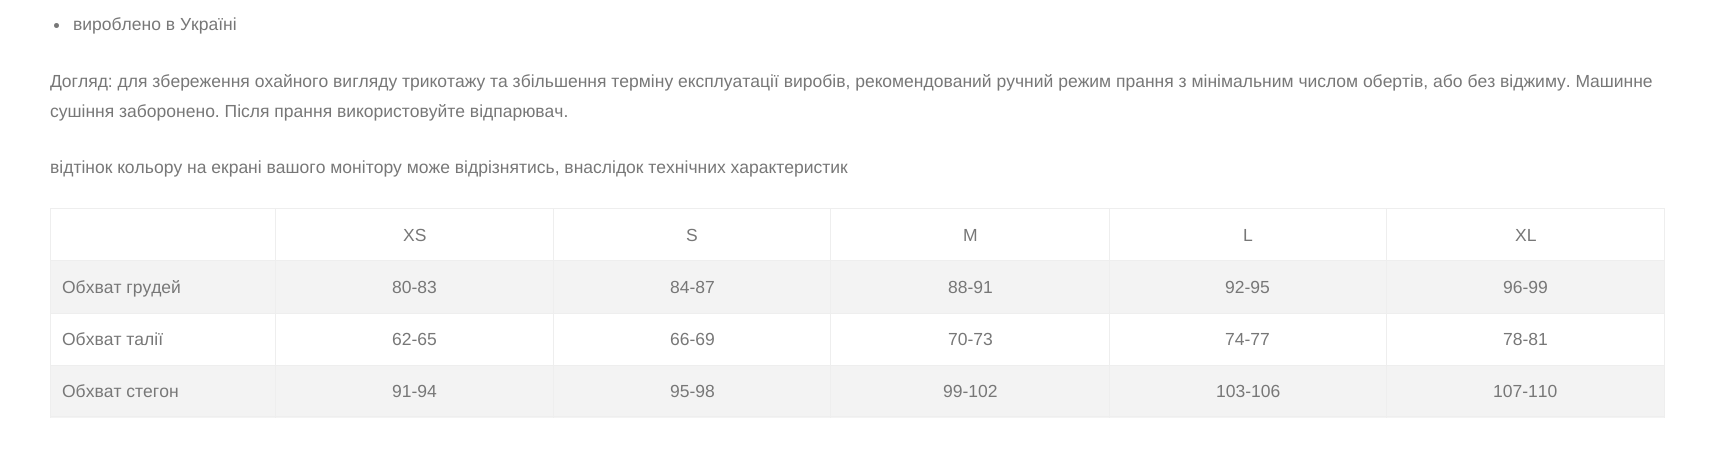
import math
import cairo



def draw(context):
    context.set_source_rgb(1, 1, 1)
    context.paint()
    context.set_source_rgb(119 / 255, 119 / 255, 119 / 255)
    context.arc(56.5, 25.5, 2.5, 0, 2 * math.pi)
    context.fill()
    context.set_source_rgb(238 / 255, 238 / 255, 238 / 255)
    context.rectangle(50, 260, 1615, 1)
    context.fill()
    context.rectangle(1386, 208, 279, 1)
    context.fill()
    context.rectangle(50, 313, 1615, 1)
    context.fill()
    context.rectangle(50, 365, 1615, 1)
    context.fill()
    context.set_source_rgb(243 / 255, 243 / 255, 243 / 255)
    context.rectangle(51, 366, 224, 52)
    context.fill()
    context.rectangle(276, 366, 277, 52)
    context.fill()
    context.rectangle(554, 366, 276, 52)
    context.fill()
    context.rectangle(831, 366, 278, 52)
    context.fill()
    context.rectangle(1110, 366, 276, 52)
    context.fill()
    context.rectangle(1387, 366, 277, 52)
    context.fill()
    context.set_source_rgb(238 / 255, 238 / 255, 238 / 255)
    context.rectangle(50, 416, 1615, 1)
    context.fill()
    context.rectangle(1386, 260, 1, 158)
    context.fill()
    context.rectangle(1386, 208, 1, 53)
    context.fill()
    context.rectangle(1109, 208, 279, 1)
    context.fill()
    context.rectangle(1109, 260, 1, 158)
    context.fill()
    context.rectangle(1109, 208, 1, 53)
    context.fill()
    context.rectangle(830, 208, 280, 1)
    context.fill()
    context.rectangle(830, 260, 1, 158)
    context.fill()
    context.rectangle(830, 208, 1, 53)
    context.fill()
    context.rectangle(553, 208, 278, 1)
    context.fill()
    context.rectangle(553, 260, 1, 158)
    context.fill()
    context.rectangle(553, 208, 1, 53)
    context.fill()
    context.rectangle(275, 208, 279, 1)
    context.fill()
    context.rectangle(275, 260, 1, 158)
    context.fill()
    context.rectangle(275, 208, 1, 53)
    context.fill()
    context.rectangle(50, 208, 226, 1)
    context.fill()
    context.rectangle(50, 260, 1, 158)
    context.fill()
    context.rectangle(50, 208, 1, 53)
    context.fill()
    context.rectangle(1664, 260, 1, 158)
    context.fill()
    context.rectangle(1664, 208, 1, 53)
    context.fill()
    context.set_source_rgb(243 / 255, 243 / 255, 243 / 255)
    context.rectangle(51, 261, 224, 52)
    context.fill()
    context.rectangle(276, 261, 277, 52)
    context.fill()
    context.rectangle(554, 261, 276, 52)
    context.fill()
    context.rectangle(831, 261, 278, 52)
    context.fill()
    context.rectangle(1110, 261, 276, 52)
    context.fill()
    context.rectangle(1387, 261, 277, 52)
    context.fill()
    context.select_font_face("Liberation Sans")
    context.set_font_size(17.5)
    context.set_source_rgb(119 / 255, 119 / 255, 119 / 255)
    context.move_to(73, 30)
    context.show_text("вироблено в Україні")
    context.move_to(50, 87)
    context.show_text("Догляд: для збереження охайного вигляду трикотажу та збільшення терміну експлуатації виробів, рекомендований ручний режим прання з мінімальним числом обертів, або без віджиму. Машинне")
    context.move_to(50, 117)
    context.show_text("сушіння заборонено. Після прання використовуйте відпарювач.")
    context.move_to(50, 173)
    context.show_text("відтінок кольору на екрані вашого монітору може відрізнятись, внаслідок технічних характеристик")
    context.move_to(403, 241)
    context.show_text("XS")
    context.move_to(686, 241)
    context.show_text("S")
    context.move_to(963, 241)
    context.show_text("M")
    context.move_to(1243, 241)
    context.show_text("L")
    context.move_to(1515, 241)
    context.show_text("XL")
    context.move_to(62, 293)
    context.show_text("Обхват грудей")
    context.move_to(392, 293)
    context.show_text("80-83")
    context.move_to(670, 293)
    context.show_text("84-87")
    context.move_to(948, 293)
    context.show_text("88-91")
    context.move_to(1225, 293)
    context.show_text("92-95")
    context.move_to(1503, 293)
    context.show_text("96-99")
    context.move_to(62, 345)
    context.show_text("Обхват талії")
    context.move_to(392, 345)
    context.show_text("62-65")
    context.move_to(670, 345)
    context.show_text("66-69")
    context.move_to(948, 345)
    context.show_text("70-73")
    context.move_to(1225, 345)
    context.show_text("74-77")
    context.move_to(1503, 345)
    context.show_text("78-81")
    context.move_to(62, 397)
    context.show_text("Обхват стегон")
    context.move_to(392, 397)
    context.show_text("91-94")
    context.move_to(670, 397)
    context.show_text("95-98")
    context.move_to(943, 397)
    context.show_text("99-102")
    context.move_to(1216, 397)
    context.show_text("103-106")
    context.move_to(1493, 397)
    context.show_text("107-110")


surface = cairo.ImageSurface(cairo.Format.RGB24, 1715, 471)
context = cairo.Context(surface)
options = cairo.FontOptions()
options.set_hint_metrics(cairo.HintMetrics.OFF)
options.set_hint_style(cairo.HintStyle.NONE)
context.set_font_options(options)
context.set_miter_limit(4)
draw(context)
surface.write_to_png("out.png")
